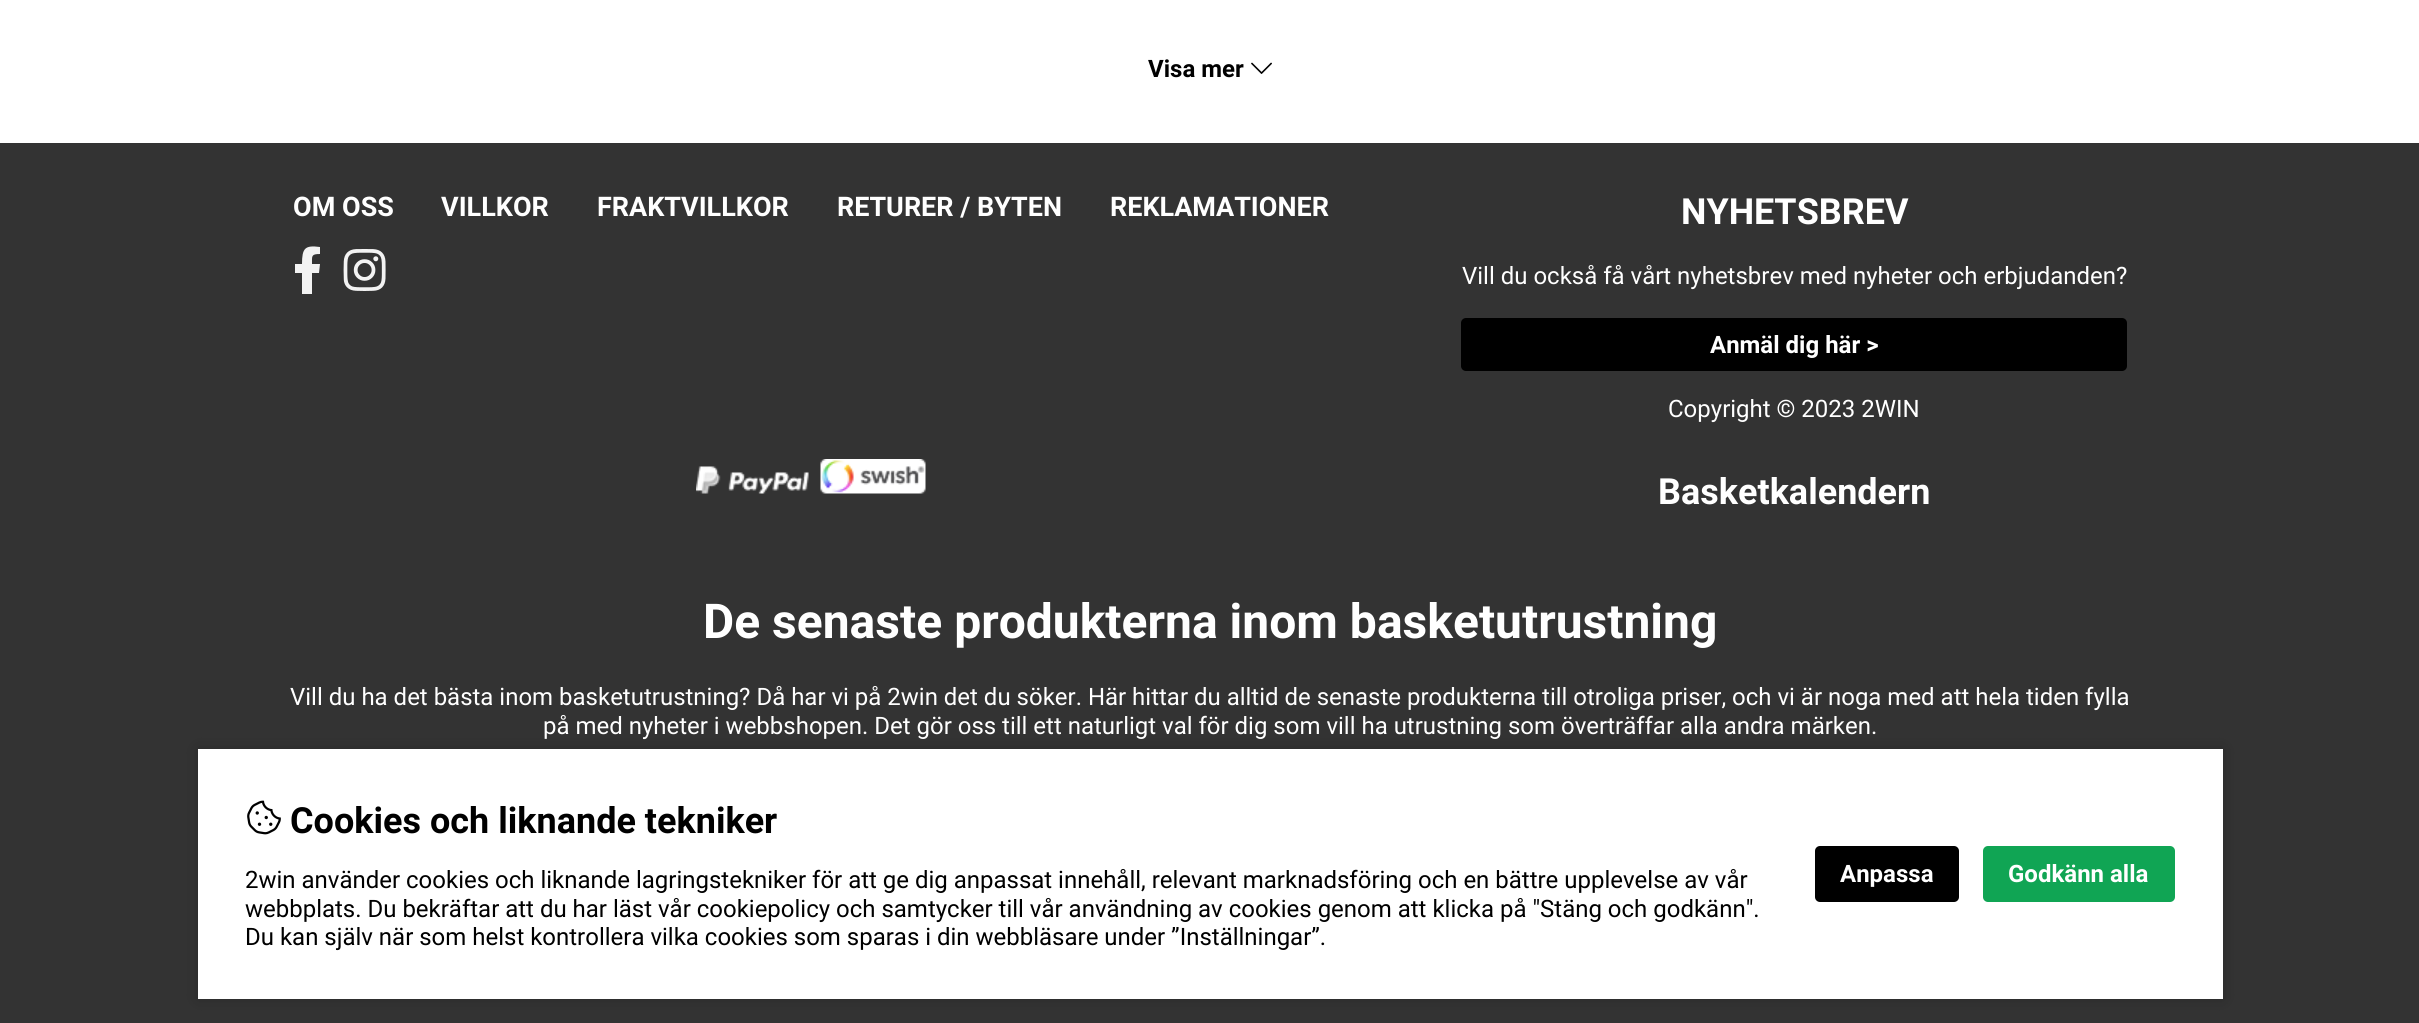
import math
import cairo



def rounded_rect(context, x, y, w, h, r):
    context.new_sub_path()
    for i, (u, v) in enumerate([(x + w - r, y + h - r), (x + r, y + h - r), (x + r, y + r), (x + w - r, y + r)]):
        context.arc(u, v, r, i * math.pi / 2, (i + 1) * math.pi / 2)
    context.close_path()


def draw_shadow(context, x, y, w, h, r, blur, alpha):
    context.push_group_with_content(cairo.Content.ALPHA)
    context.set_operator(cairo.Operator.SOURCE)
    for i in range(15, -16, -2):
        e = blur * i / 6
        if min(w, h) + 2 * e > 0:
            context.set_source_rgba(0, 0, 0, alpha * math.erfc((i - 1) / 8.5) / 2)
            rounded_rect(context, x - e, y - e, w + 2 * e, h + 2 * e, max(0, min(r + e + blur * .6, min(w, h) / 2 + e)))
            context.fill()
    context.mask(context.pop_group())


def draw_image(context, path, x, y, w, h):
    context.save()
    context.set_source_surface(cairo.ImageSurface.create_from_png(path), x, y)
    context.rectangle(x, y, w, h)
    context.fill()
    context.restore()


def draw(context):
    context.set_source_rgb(1, 1, 1)
    context.paint()
    draw_image(context, "images/1.png", 1251, 62, 21, 12)
    context.set_source_rgb(51 / 255, 51 / 255, 51 / 255)
    context.rectangle(0, 143, 2419, 880)
    context.fill()
    context.set_source_rgb(243 / 255, 243 / 255, 243 / 255)
    context.new_path()
    context.move_to(319, 273)
    context.line_to(312, 273)
    context.line_to(312, 294)
    context.line_to(302, 294)
    context.line_to(302, 273)
    context.line_to(295, 273)
    context.line_to(295, 264)
    context.line_to(302, 264)
    context.curve_to(302, 248, 305, 245, 320, 247)
    context.line_to(320, 254)
    context.curve_to(311, 254, 312, 256, 312, 264)
    context.line_to(320, 264)
    context.close_path()
    context.fill()
    draw_image(context, "images/2.png", 343, 249, 43, 42)
    draw_image(context, "images/3.png", 696, 466, 113, 28)
    draw_image(context, "images/4.png", 820, 459, 106, 35)
    context.set_source_rgb(0, 0, 0)
    rounded_rect(context, 1461, 318, 666, 53, 5)
    context.fill()
    context.set_source_rgb(0, 0, 0)
    draw_shadow(context, 198, 749, 2025, 250, 0, 7.5, 0.2)
    context.set_source_rgb(1, 1, 1)
    context.rectangle(198, 749, 2025, 250)
    context.fill()
    draw_image(context, "images/5.png", 247, 800, 34, 35)
    context.set_source_rgb(0, 0, 0)
    rounded_rect(context, 1815, 846, 144, 56, 5)
    context.fill()
    context.set_source_rgb(16 / 255, 165 / 255, 84 / 255)
    rounded_rect(context, 1983, 846, 192, 56, 5)
    context.fill()
    context.select_font_face("Roboto", cairo.FontSlant.NORMAL, cairo.FontWeight.BOLD)
    context.set_font_size(24)
    context.set_source_rgb(0, 0, 0)
    context.move_to(1148, 77)
    context.show_text("Visa mer")
    context.set_font_size(27)
    context.set_source_rgb(1, 1, 1)
    context.move_to(293, 216)
    context.show_text("OM OSS")
    context.move_to(441, 216)
    context.show_text("VILLKOR")
    context.move_to(597, 216)
    context.show_text("FRAKTVILLKOR")
    context.move_to(837, 216)
    context.show_text("RETURER / BYTEN")
    context.move_to(1110, 216)
    context.show_text("REKLAMATIONER")
    context.set_font_size(36)
    context.move_to(1681, 224)
    context.show_text("NYHETSBREV")
    context.select_font_face("Roboto")
    context.set_font_size(24)
    context.move_to(1462, 284)
    context.show_text("Vill du också få vårt nyhetsbrev med nyheter och erbjudanden?")
    context.select_font_face("Roboto", cairo.FontSlant.NORMAL, cairo.FontWeight.BOLD)
    context.move_to(1710, 353)
    context.show_text("Anmäl dig här >")
    context.select_font_face("Roboto")
    context.move_to(1668, 417)
    context.show_text("Copyright © 2023 2WIN")
    context.select_font_face("Roboto", cairo.FontSlant.NORMAL, cairo.FontWeight.BOLD)
    context.set_font_size(36)
    context.move_to(1658, 504)
    context.show_text("Basketkalendern")
    context.set_font_size(48)
    context.move_to(703, 638)
    context.show_text("De senaste produkterna inom basketutrustning")
    context.select_font_face("Roboto")
    context.set_font_size(24)
    context.move_to(290, 705)
    context.show_text("Vill du ha det bästa inom basketutrustning? Då har vi på 2win det du söker. Här hittar du alltid de senaste produkterna till otroliga priser, och vi är noga med att hela tiden fylla")
    context.move_to(543, 734)
    context.show_text("på med nyheter i webbshopen. Det gör oss till ett naturligt val för dig som vill ha utrustning som överträffar alla andra märken.")
    context.select_font_face("Roboto", cairo.FontSlant.NORMAL, cairo.FontWeight.BOLD)
    context.set_font_size(36)
    context.set_source_rgb(0, 0, 0)
    context.move_to(290, 833)
    context.show_text("Cookies och liknande tekniker")
    context.select_font_face("Roboto")
    context.set_font_size(24)
    context.move_to(245, 888)
    context.show_text("2win använder cookies och liknande lagringstekniker för att ge dig anpassat innehåll, relevant marknadsföring och en bättre upplevelse av vår")
    context.move_to(245, 917)
    context.show_text("webbplats. Du bekräftar att du har läst vår cookiepolicy och samtycker till vår användning av cookies genom att klicka på \"Stäng och godkänn\".")
    context.move_to(245, 945)
    context.show_text("Du kan själv när som helst kontrollera vilka cookies som sparas i din webbläsare under ”Inställningar”.")
    context.select_font_face("Roboto", cairo.FontSlant.NORMAL, cairo.FontWeight.BOLD)
    context.set_source_rgb(1, 1, 1)
    context.move_to(1840, 882)
    context.show_text("Anpassa")
    context.move_to(2008, 882)
    context.show_text("Godkänn alla")


surface = cairo.ImageSurface(cairo.Format.RGB24, 2419, 1023)
context = cairo.Context(surface)
options = cairo.FontOptions()
options.set_hint_metrics(cairo.HintMetrics.OFF)
options.set_hint_style(cairo.HintStyle.NONE)
context.set_font_options(options)
context.set_miter_limit(4)
draw(context)
surface.write_to_png("out.png")
